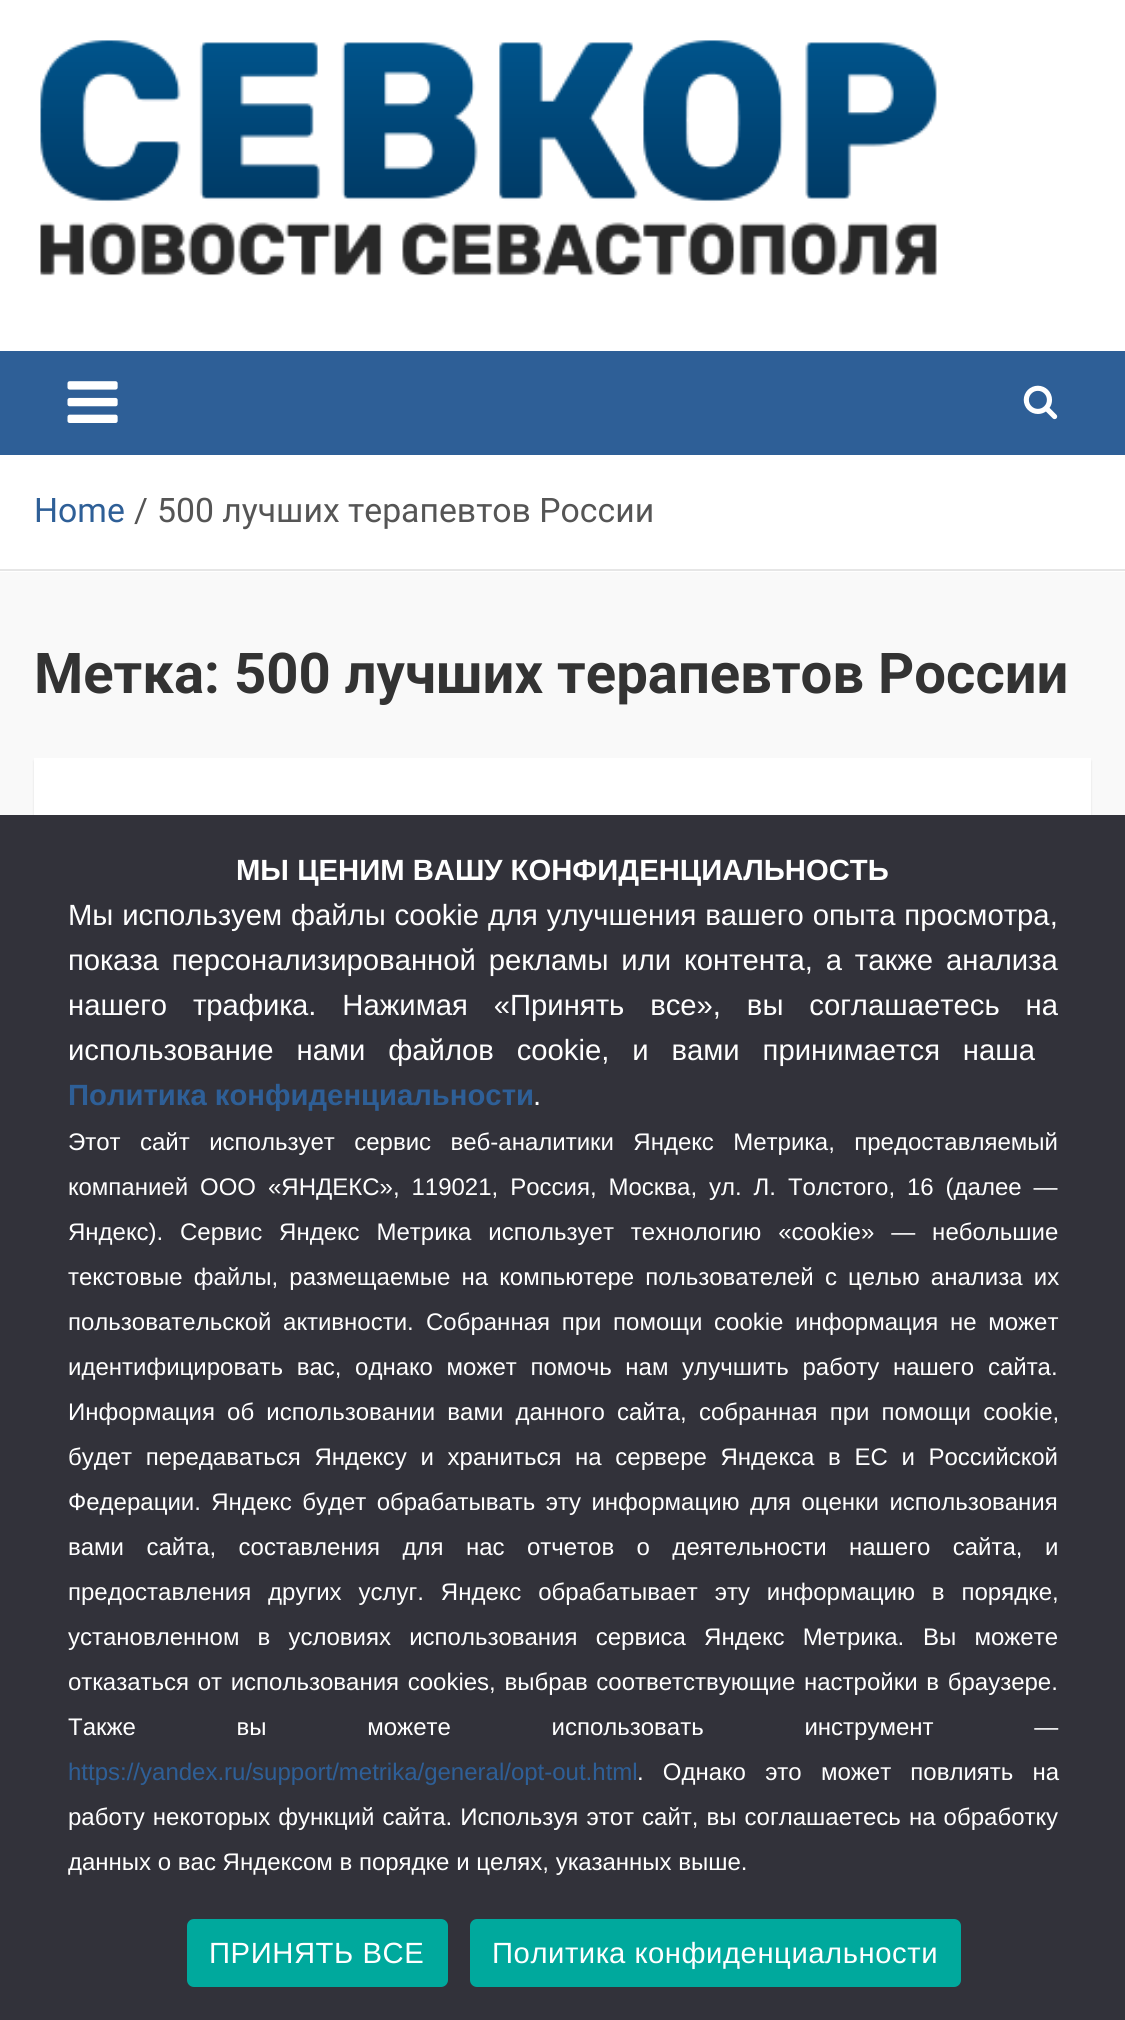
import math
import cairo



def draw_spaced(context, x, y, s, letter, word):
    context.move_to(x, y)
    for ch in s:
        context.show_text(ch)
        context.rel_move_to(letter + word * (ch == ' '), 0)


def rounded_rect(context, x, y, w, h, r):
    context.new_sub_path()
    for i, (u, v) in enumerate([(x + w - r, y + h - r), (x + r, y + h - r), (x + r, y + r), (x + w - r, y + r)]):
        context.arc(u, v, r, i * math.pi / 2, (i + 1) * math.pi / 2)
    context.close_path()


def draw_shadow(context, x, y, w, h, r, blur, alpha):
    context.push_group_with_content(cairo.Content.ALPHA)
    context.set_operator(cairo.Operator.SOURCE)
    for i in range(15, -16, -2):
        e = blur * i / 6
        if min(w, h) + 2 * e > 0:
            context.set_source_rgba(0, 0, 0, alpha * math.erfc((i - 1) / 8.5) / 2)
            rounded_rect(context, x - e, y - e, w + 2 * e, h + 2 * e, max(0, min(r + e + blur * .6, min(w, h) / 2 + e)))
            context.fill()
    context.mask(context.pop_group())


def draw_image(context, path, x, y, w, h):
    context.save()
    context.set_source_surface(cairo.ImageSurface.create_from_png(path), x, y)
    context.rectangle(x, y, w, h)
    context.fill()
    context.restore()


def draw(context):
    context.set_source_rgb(249 / 255, 249 / 255, 249 / 255)
    context.paint()
    context.set_source_rgb(1, 1, 1)
    context.rectangle(0, 0, 1125, 351)
    context.fill()
    draw_image(context, "images/1.png", 40, 40, 897, 236)
    context.set_source_rgb(46 / 255, 95 / 255, 151 / 255)
    context.rectangle(0, 351, 1125, 104)
    context.fill()
    draw_image(context, "images/2.png", 67, 381, 51, 42)
    draw_image(context, "images/3.png", 1023, 385, 35, 35)
    context.set_source_rgb(1, 1, 1)
    context.rectangle(0, 455, 1125, 117)
    context.fill()
    context.set_source_rgb(230 / 255, 230 / 255, 230 / 255)
    context.rectangle(0, 569, 1125, 2)
    context.fill()
    context.set_source_rgb(0, 0, 0)
    draw_shadow(context, 34, 761, 1057, 443, 0, 1, 0.1)
    context.set_source_rgb(1, 1, 1)
    context.rectangle(34, 758, 1057, 57)
    context.fill()
    context.set_source_rgb(50 / 255, 50 / 255, 58 / 255)
    context.rectangle(0, 815, 1125, 1205)
    context.fill()
    context.set_source_rgb(0, 169 / 255, 157 / 255)
    rounded_rect(context, 187, 1919, 261, 68, 7)
    context.fill()
    rounded_rect(context, 470, 1919, 491, 68, 7)
    context.fill()
    context.select_font_face("Roboto")
    context.set_font_size(33.75)
    context.set_source_rgb(46 / 255, 95 / 255, 151 / 255)
    context.move_to(34, 522)
    context.show_text("Home")
    context.set_source_rgb(85 / 255, 85 / 255, 85 / 255)
    context.move_to(134, 522)
    context.show_text("/")
    context.move_to(157, 522)
    context.show_text("500 лучших терапевтов России")
    context.select_font_face("Roboto", cairo.FontSlant.NORMAL, cairo.FontWeight.BOLD)
    context.set_font_size(56.25)
    context.set_source_rgb(51 / 255, 51 / 255, 51 / 255)
    context.move_to(34, 693)
    context.show_text("Метка: 500 лучших терапевтов России")
    context.select_font_face("Liberation Sans", cairo.FontSlant.NORMAL, cairo.FontWeight.BOLD)
    context.set_font_size(29.25)
    context.set_source_rgb(1, 1, 1)
    context.move_to(236, 880)
    context.show_text("МЫ ЦЕНИМ ВАШУ КОНФИДЕНЦИАЛЬНОСТЬ")
    context.select_font_face("Liberation Sans")
    draw_spaced(context, 68, 925, "Мы используем файлы cookie для улучшения вашего опыта просмотра,", 0, 0.75)
    draw_spaced(context, 68, 970, "показа персонализированной рекламы или контента, а также анализа", 0, 4.75)
    draw_spaced(context, 68, 1015, "нашего трафика. Нажимая «Принять все», вы соглашаетесь на", 0, 17.75)
    draw_spaced(context, 68, 1060, "использование нами файлов cookie, и вами принимается наша", 0, 14.75)
    context.select_font_face("Liberation Sans", cairo.FontSlant.NORMAL, cairo.FontWeight.BOLD)
    context.set_source_rgb(46 / 255, 95 / 255, 151 / 255)
    context.move_to(68, 1105)
    context.show_text("Политика конфиденциальности")
    context.select_font_face("Liberation Sans")
    context.set_source_rgb(1, 1, 1)
    context.move_to(533, 1105)
    context.show_text(".")
    context.set_font_size(24)
    draw_spaced(context, 68, 1150, "Этот сайт использует сервис веб-аналитики Яндекс Метрика, предоставляемый", 0, 12.75)
    draw_spaced(context, 68, 1195, "компанией ООО «ЯНДЕКС», 119021, Россия, Москва, ул. Л. Толстого, 16 (далее —", 0, 5.25)
    draw_spaced(context, 68, 1240, "Яндекс). Сервис Яндекс Метрика использует технологию «cookie» — небольшие", 0, 10.25)
    draw_spaced(context, 68, 1285, "текстовые файлы, размещаемые на компьютере пользователей с целью анализа их", 0, 4.5)
    draw_spaced(context, 68, 1330, "пользовательской активности.", 0, 5)
    draw_spaced(context, 426, 1330, "Собранная при помощи cookie информация не может", 0, 5)
    draw_spaced(context, 68, 1375, "идентифицировать вас, однако может помочь нам улучшить работу нашего сайта.", 0, 7)
    draw_spaced(context, 68, 1420, "Информация об использовании вами данного сайта, собранная при помощи cookie,", 0, 5.5)
    draw_spaced(context, 68, 1465, "будет передаваться Яндексу и храниться на сервере Яндекса в ЕС и Российской", 0, 7)
    draw_spaced(context, 68, 1510, "Федерации. Яндекс будет обрабатывать эту информацию для оценки использования", 0, 3.75)
    draw_spaced(context, 68, 1555, "вами сайта, составления для нас отчетов о деятельности нашего сайта, и", 0, 15.75)
    draw_spaced(context, 68, 1600, "предоставления других услуг. Яндекс обрабатывает эту информацию в порядке,", 0, 10.25)
    draw_spaced(context, 68, 1645, "установленном в условиях использования сервиса Яндекс Метрика.", 0, 11.5)
    draw_spaced(context, 923, 1645, "Вы можете", 0, 11.5)
    draw_spaced(context, 68, 1690, "отказаться от использования cookies, выбрав соответствующие настройки в браузере.", 0, 2)
    draw_spaced(context, 68, 1735, "Также вы можете использовать инструмент —", 0, 94)
    context.set_source_rgb(46 / 255, 95 / 255, 151 / 255)
    context.move_to(68, 1780)
    context.show_text("https://yandex.ru/support/metrika/general/opt-out.html")
    context.set_source_rgb(1, 1, 1)
    draw_spaced(context, 637, 1780, ". Однако это может повлиять на", 0, 12.5)
    draw_spaced(context, 68, 1825, "работу некоторых функций сайта. Используя этот сайт, вы соглашаетесь на обработку", 0, 1.4)
    context.move_to(68, 1870)
    context.show_text("данных о вас Яндексом в порядке и целях, указанных выше.")
    context.set_font_size(29.25)
    draw_spaced(context, 209, 1963, "ПРИНЯТЬ ВСЕ", 0.55, 0)
    draw_spaced(context, 492, 1963, "Политика конфиденциальности", 0.55, 0)


surface = cairo.ImageSurface(cairo.Format.RGB24, 1125, 2020)
context = cairo.Context(surface)
options = cairo.FontOptions()
options.set_hint_metrics(cairo.HintMetrics.OFF)
options.set_hint_style(cairo.HintStyle.NONE)
context.set_font_options(options)
context.set_miter_limit(4)
draw(context)
surface.write_to_png("out.png")
